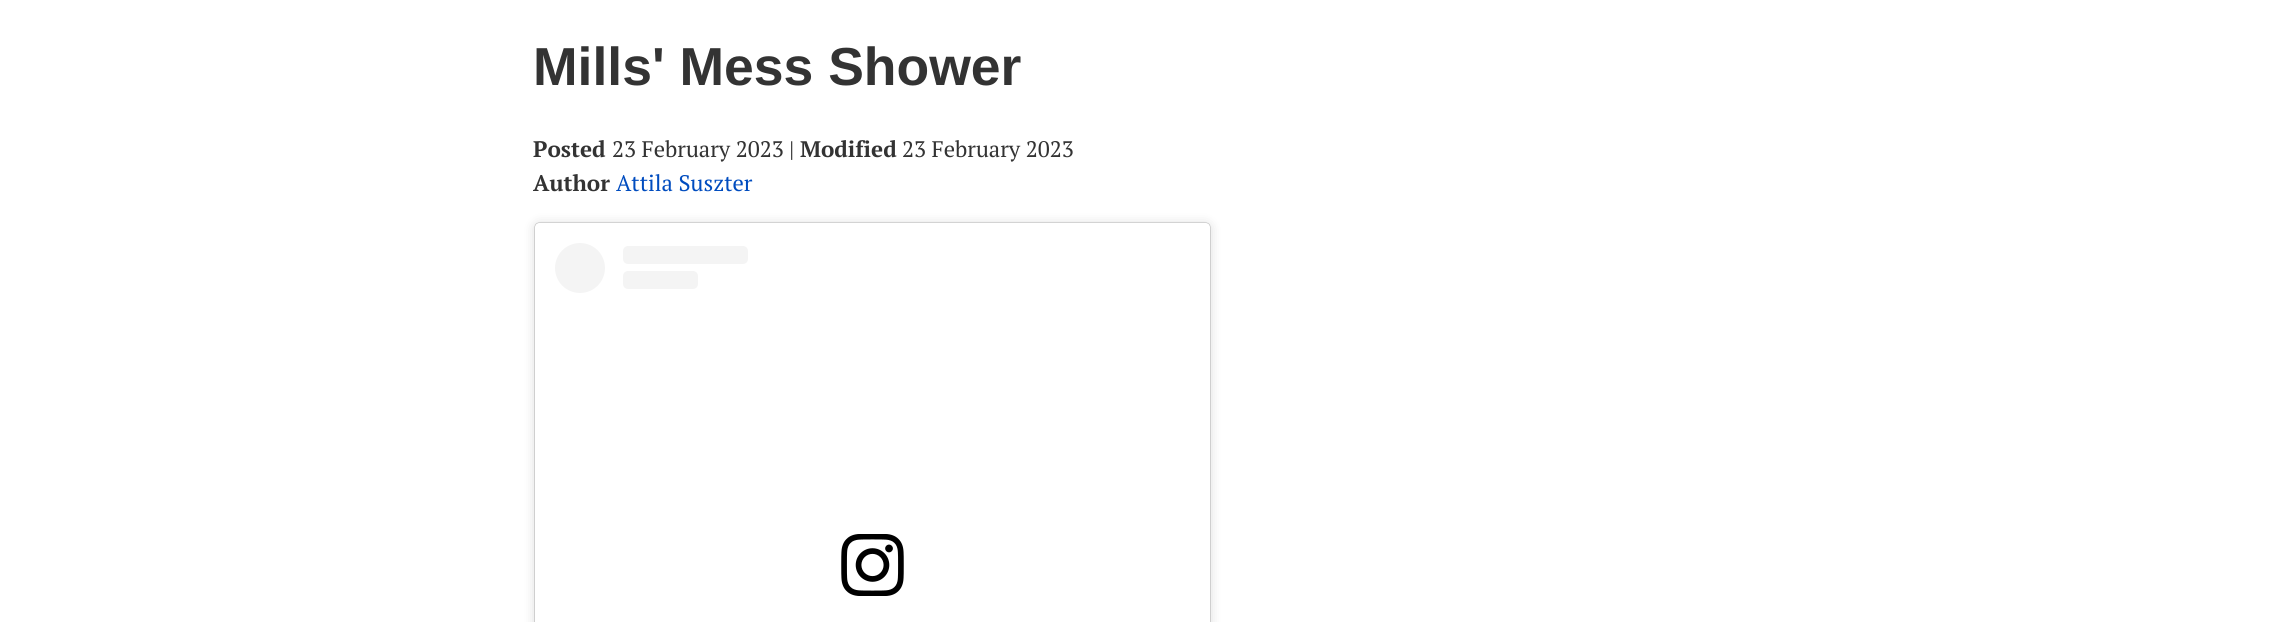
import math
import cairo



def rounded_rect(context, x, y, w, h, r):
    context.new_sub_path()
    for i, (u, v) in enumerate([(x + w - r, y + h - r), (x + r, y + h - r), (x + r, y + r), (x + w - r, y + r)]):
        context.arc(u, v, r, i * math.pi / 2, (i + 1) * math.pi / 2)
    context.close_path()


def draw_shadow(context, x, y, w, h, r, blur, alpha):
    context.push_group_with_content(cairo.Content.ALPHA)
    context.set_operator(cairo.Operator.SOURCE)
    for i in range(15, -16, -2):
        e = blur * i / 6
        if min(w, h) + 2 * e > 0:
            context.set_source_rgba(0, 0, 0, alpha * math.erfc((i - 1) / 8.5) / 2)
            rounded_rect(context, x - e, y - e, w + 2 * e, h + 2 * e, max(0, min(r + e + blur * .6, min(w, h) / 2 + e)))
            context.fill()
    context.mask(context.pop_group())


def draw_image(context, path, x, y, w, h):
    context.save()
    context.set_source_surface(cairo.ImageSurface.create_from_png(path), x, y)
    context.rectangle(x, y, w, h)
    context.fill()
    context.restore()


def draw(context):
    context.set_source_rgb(1, 1, 1)
    context.paint()
    context.set_source_rgb(0, 0, 0)
    draw_shadow(context, 535, 224, 675, 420, 4, 6, 0.15)
    draw_shadow(context, 535, 223, 675, 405, 4, 0.5, 0.5)
    context.set_source_rgb(1, 1, 1)
    rounded_rect(context, 535, 223, 675, 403, 4)
    context.fill()
    context.set_source_rgb(244 / 255, 244 / 255, 244 / 255)
    context.arc(580, 268, 25, 0, 2 * math.pi)
    context.fill()
    rounded_rect(context, 623, 246, 125, 18, 5)
    context.fill()
    rounded_rect(context, 623, 271, 75, 18, 5)
    context.fill()
    draw_image(context, "images/1.png", 841, 534, 63, 62)
    context.select_font_face("Liberation Sans", cairo.FontSlant.NORMAL, cairo.FontWeight.BOLD)
    context.set_font_size(53.5)
    context.set_source_rgb(51 / 255, 51 / 255, 51 / 255)
    context.move_to(533, 85)
    context.show_text("Mills' Mess Shower")
    context.select_font_face("PT Serif", cairo.FontSlant.NORMAL, cairo.FontWeight.BOLD)
    context.set_font_size(22.5)
    context.move_to(533, 157)
    context.show_text("Posted")
    context.select_font_face("PT Serif")
    context.move_to(612, 157)
    context.show_text("23 February 2023 |")
    context.select_font_face("PT Serif", cairo.FontSlant.NORMAL, cairo.FontWeight.BOLD)
    context.move_to(800, 157)
    context.show_text("Modified")
    context.select_font_face("PT Serif")
    context.move_to(902, 157)
    context.show_text("23 February 2023")
    context.select_font_face("PT Serif", cairo.FontSlant.NORMAL, cairo.FontWeight.BOLD)
    context.move_to(533, 191)
    context.show_text("Author")
    context.select_font_face("PT Serif")
    context.set_source_rgb(0, 76 / 255, 191 / 255)
    context.move_to(616, 191)
    context.show_text("Attila Suszter")


surface = cairo.ImageSurface(cairo.Format.RGB24, 2281, 622)
context = cairo.Context(surface)
options = cairo.FontOptions()
options.set_hint_metrics(cairo.HintMetrics.OFF)
options.set_hint_style(cairo.HintStyle.NONE)
context.set_font_options(options)
context.set_miter_limit(4)
draw(context)
surface.write_to_png("out.png")
